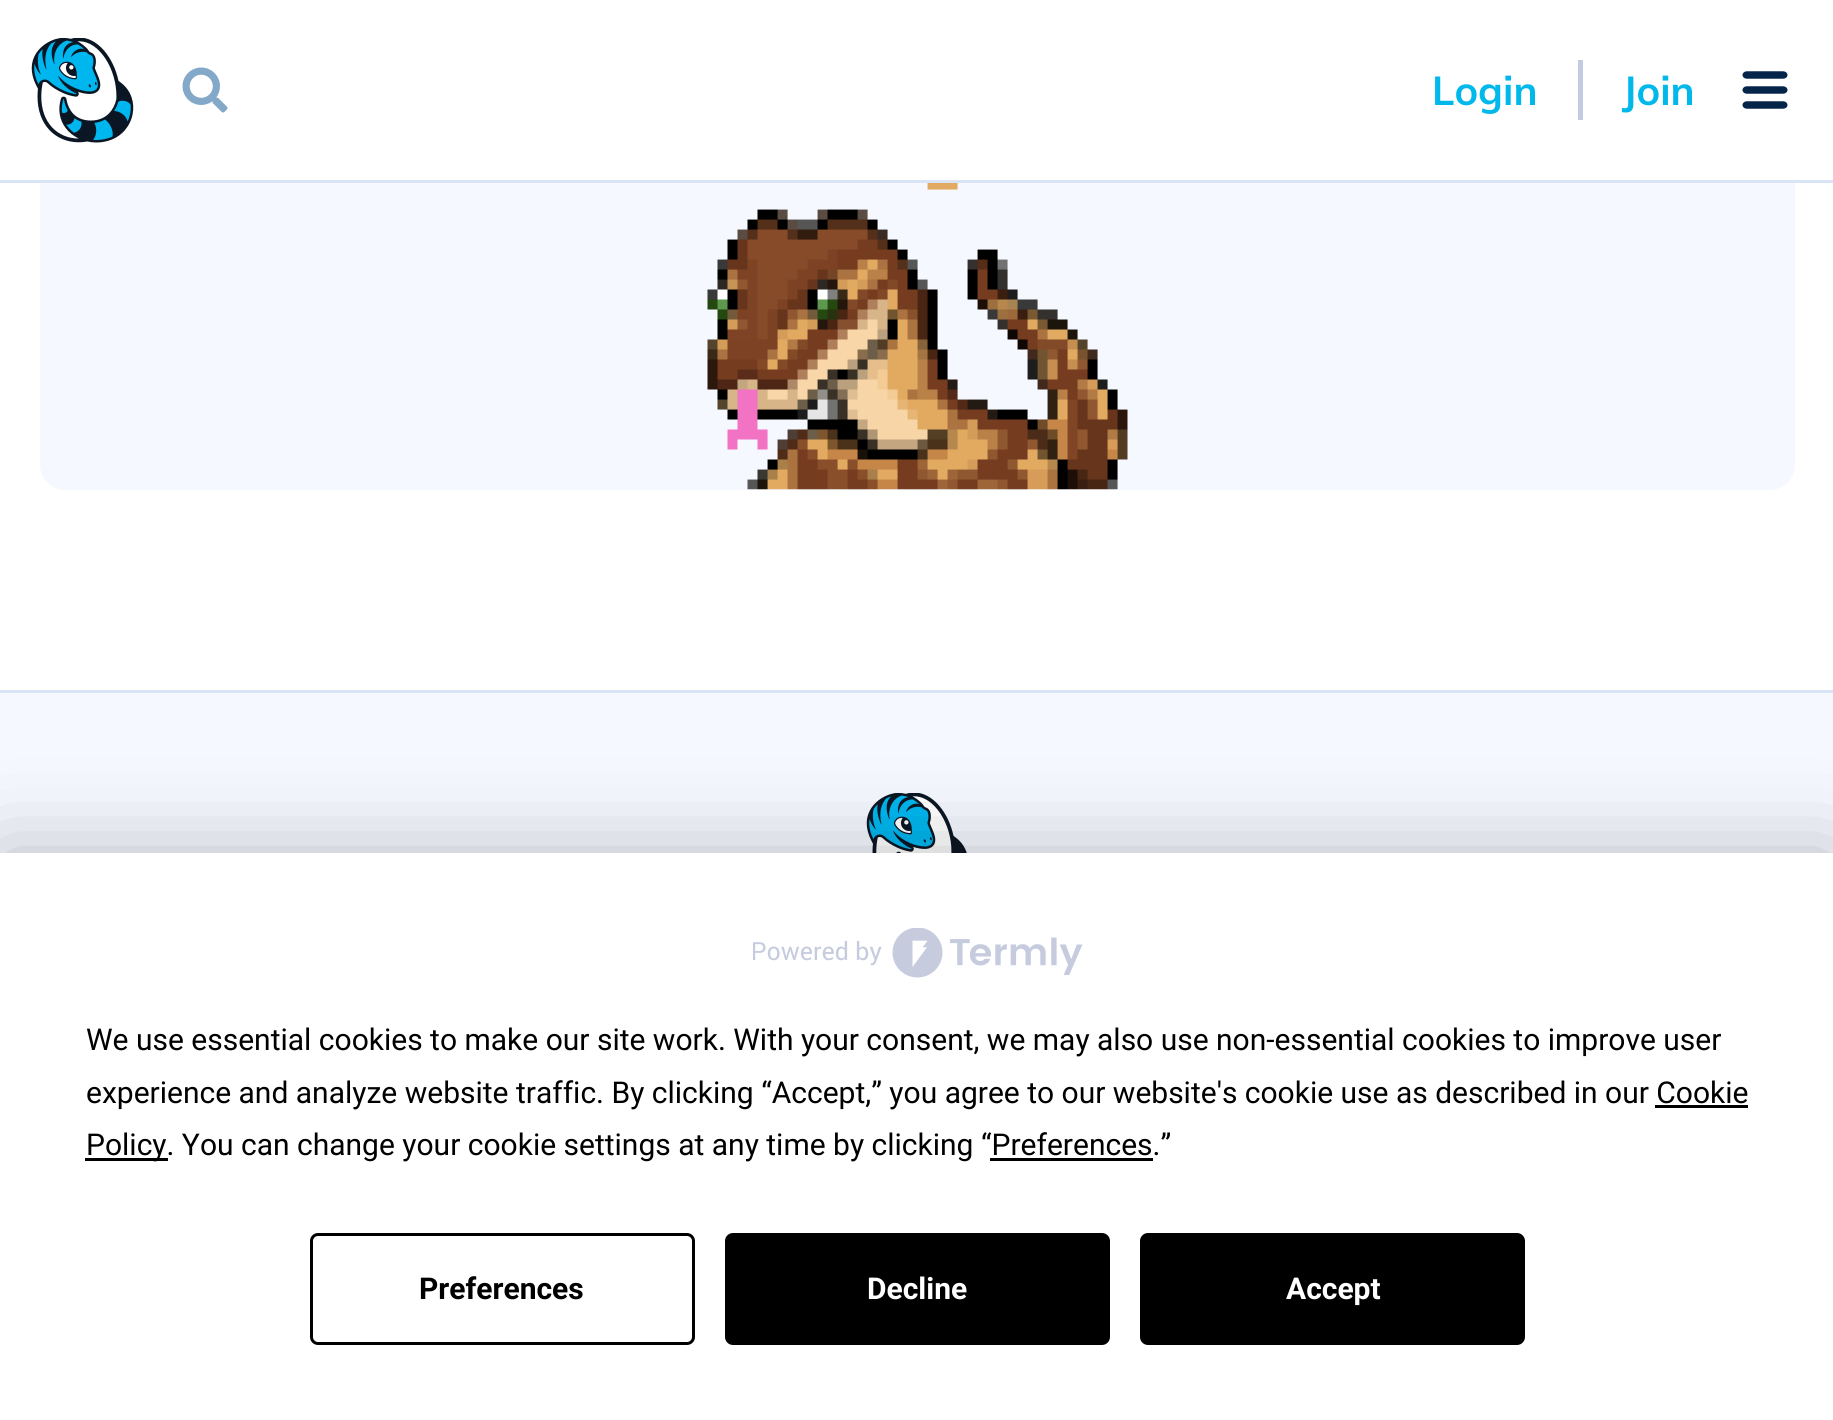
import math
import cairo



def rounded_rect(context, x, y, w, h, r):
    context.new_sub_path()
    for i, (u, v) in enumerate([(x + w - r, y + h - r), (x + r, y + h - r), (x + r, y + r), (x + w - r, y + r)]):
        context.arc(u, v, r, i * math.pi / 2, (i + 1) * math.pi / 2)
    context.close_path()


def draw_shadow(context, x, y, w, h, r, blur, alpha):
    context.push_group_with_content(cairo.Content.ALPHA)
    context.set_operator(cairo.Operator.SOURCE)
    for i in range(15, -16, -2):
        e = blur * i / 6
        if min(w, h) + 2 * e > 0:
            context.set_source_rgba(0, 0, 0, alpha * math.erfc((i - 1) / 8.5) / 2)
            rounded_rect(context, x - e, y - e, w + 2 * e, h + 2 * e, max(0, min(r + e + blur * .6, min(w, h) / 2 + e)))
            context.fill()
    context.mask(context.pop_group())


def draw_image(context, path, x, y, w, h):
    context.save()
    context.set_source_surface(cairo.ImageSurface.create_from_png(path), x, y)
    context.rectangle(x, y, w, h)
    context.fill()
    context.restore()


def draw(context):
    context.set_source_rgb(1, 1, 1)
    context.paint()
    context.set_source_rgb(245 / 255, 248 / 255, 1)
    rounded_rect(context, 40, -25, 1755, 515, 25)
    context.fill()
    draw_image(context, "images/1.png", 707, 183, 421, 307)
    context.set_source_rgb(1, 1, 1)
    context.rectangle(40, 0, 1755, 180)
    context.fill()
    context.set_source_rgb(218 / 255, 228 / 255, 247 / 255)
    context.rectangle(0, 180, 1833, 3)
    context.fill()
    draw_image(context, "images/2.png", 31, 38, 103, 105)
    draw_image(context, "images/3.png", 182, 67, 46, 46)
    context.set_source_rgb(193 / 255, 204 / 255, 226 / 255)
    context.rectangle(1578, 60, 5, 60)
    context.fill()
    draw_image(context, "images/4.png", 1742, 71, 46, 38)
    context.set_source_rgb(245 / 255, 248 / 255, 1)
    context.rectangle(0, 693, 1833, 160)
    context.fill()
    context.set_source_rgb(218 / 255, 228 / 255, 247 / 255)
    context.rectangle(0, 690, 1833, 3)
    context.fill()
    draw_image(context, "images/5.png", 866, 793, 101, 60)
    context.set_source_rgb(0, 0, 0)
    draw_shadow(context, 0, 853, 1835, 567, 0, 44, 0.25)
    context.set_source_rgb(1, 1, 1)
    context.rectangle(0, 853, 1833, 567)
    context.fill()
    draw_image(context, "images/6.png", 753, 928, 330, 50)
    context.set_source_rgb(0, 0, 0)
    context.rectangle(1655, 1105, 93, 3)
    context.fill()
    context.rectangle(85, 1158, 83, 3)
    context.fill()
    context.rectangle(990, 1158, 163, 3)
    context.fill()
    rounded_rect(context, 311.5, 1234.5, 382, 109, 6.5)
    context.set_line_width(3)
    context.stroke()
    rounded_rect(context, 726.5, 1234.5, 382, 109, 6.5)
    context.fill_preserve()
    context.stroke()
    rounded_rect(context, 1141.5, 1234.5, 382, 109, 6.5)
    context.fill_preserve()
    context.stroke()
    context.select_font_face("Mulish", cairo.FontSlant.NORMAL, cairo.FontWeight.BOLD)
    context.set_font_size(40)
    context.set_source_rgb(0, 184 / 255, 234 / 255)
    context.move_to(1432, 105)
    context.show_text("Login")
    context.move_to(1622, 105)
    context.show_text("Join")
    context.select_font_face("Roboto")
    context.set_font_size(30)
    context.set_source_rgb(0, 0, 0)
    context.move_to(86, 1050)
    context.show_text("We use essential cookies to make our site work. With your consent, we may also use non-essential cookies to improve user")
    context.move_to(86, 1103)
    context.show_text("experience and analyze website traffic. By clicking “Accept,” you agree to our website's cookie use as described in our Cookie")
    context.move_to(86, 1155)
    context.show_text("Policy. You can change your cookie settings at any time by clicking “Preferences.”")
    context.select_font_face("Roboto", cairo.FontSlant.NORMAL, cairo.FontWeight.BOLD)
    context.move_to(419, 1299)
    context.show_text("Preferences")
    context.set_source_rgb(1, 1, 1)
    context.move_to(867, 1299)
    context.show_text("Decline")
    context.move_to(1286, 1299)
    context.show_text("Accept")


surface = cairo.ImageSurface(cairo.Format.RGB24, 1833, 1420)
context = cairo.Context(surface)
options = cairo.FontOptions()
options.set_hint_metrics(cairo.HintMetrics.OFF)
options.set_hint_style(cairo.HintStyle.NONE)
context.set_font_options(options)
context.set_miter_limit(4)
draw(context)
surface.write_to_png("out.png")
